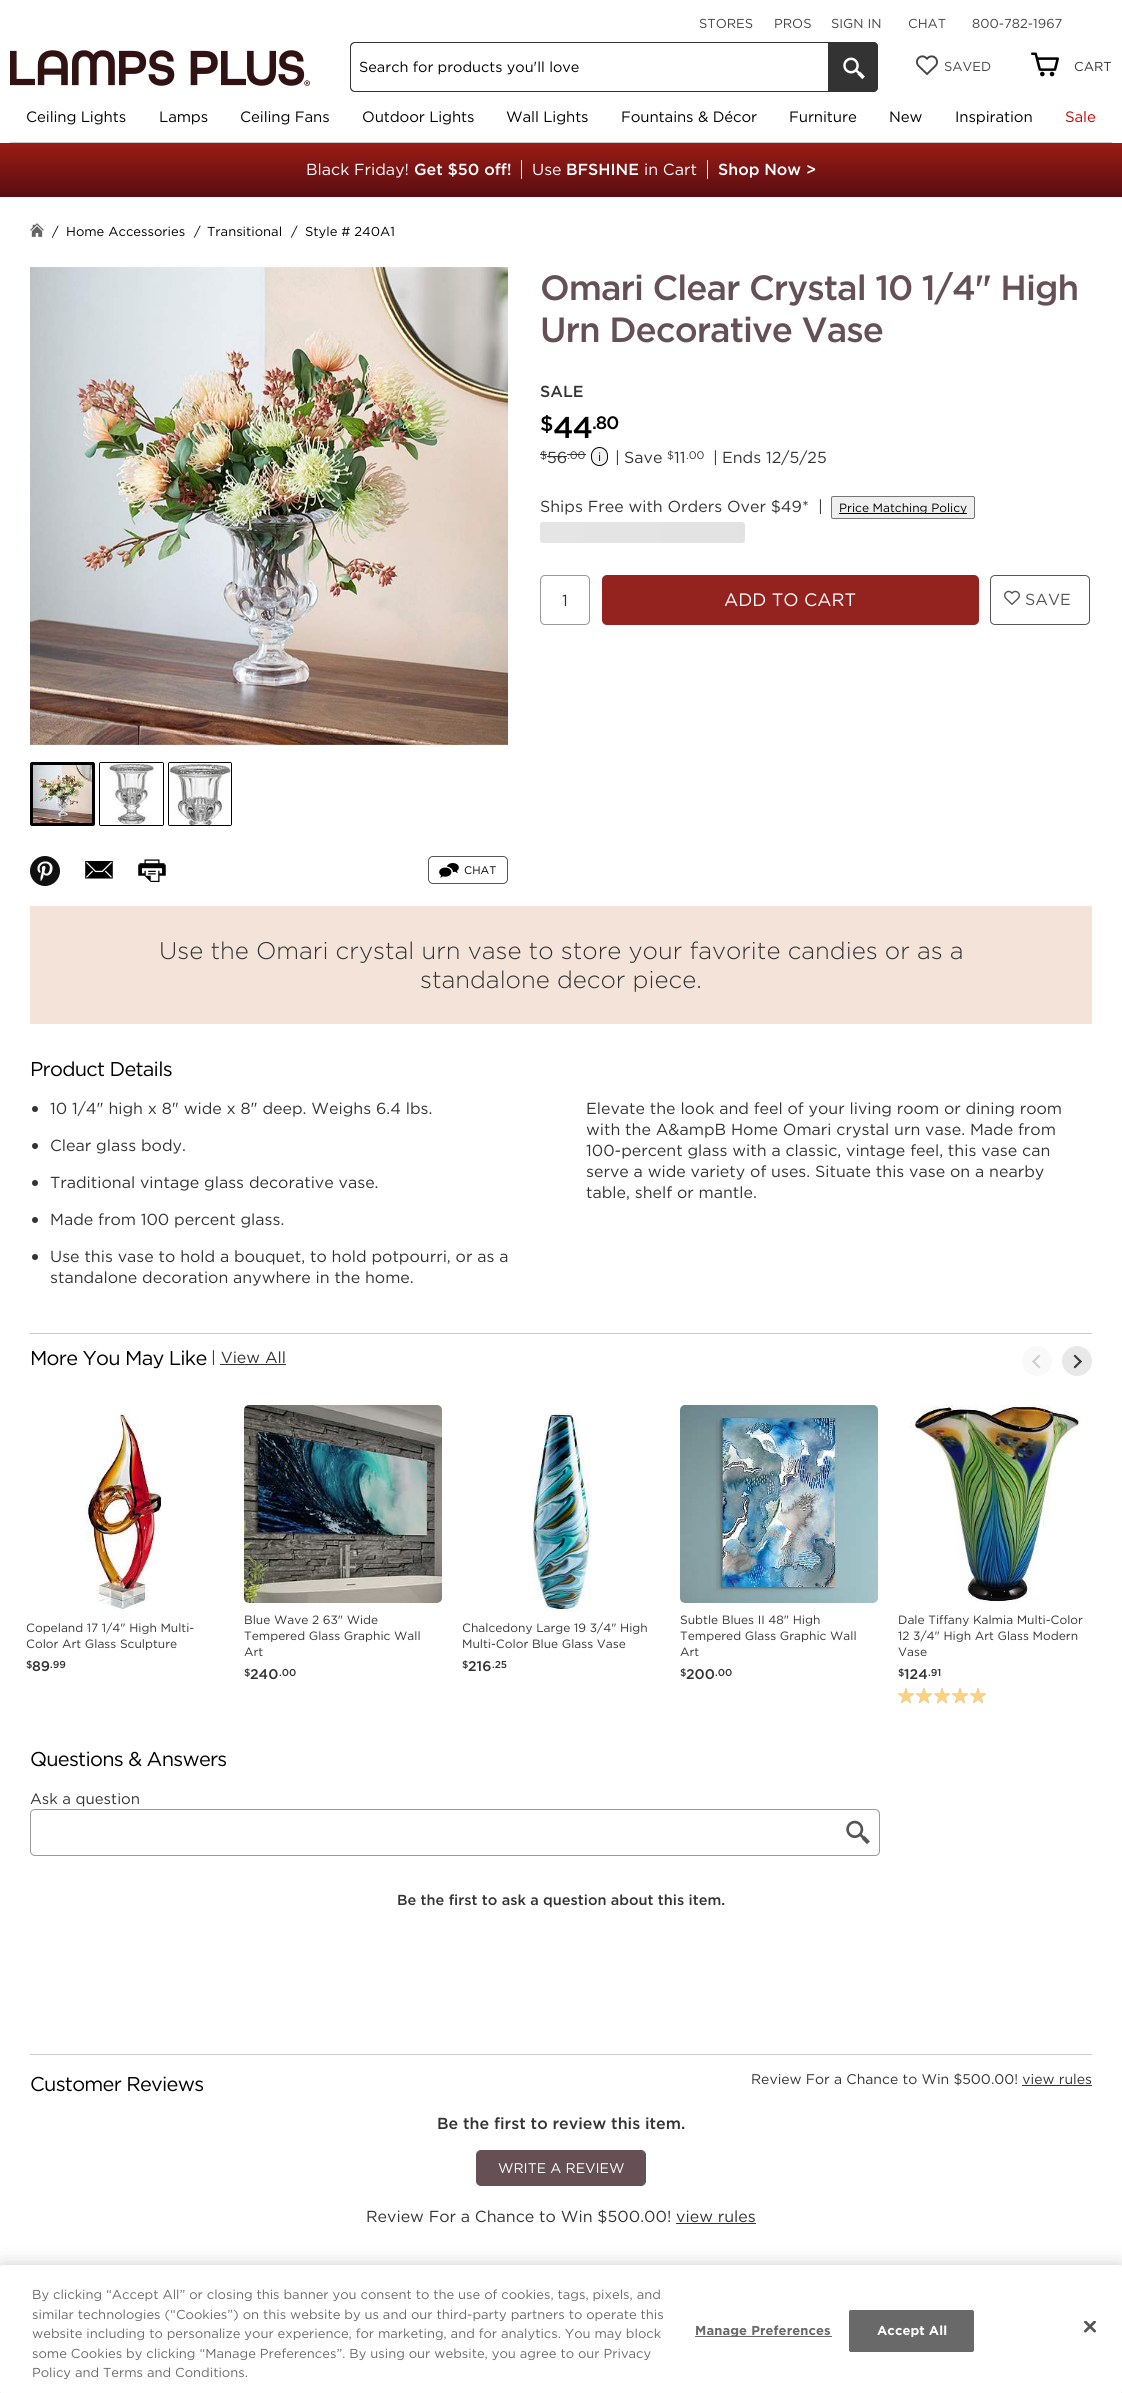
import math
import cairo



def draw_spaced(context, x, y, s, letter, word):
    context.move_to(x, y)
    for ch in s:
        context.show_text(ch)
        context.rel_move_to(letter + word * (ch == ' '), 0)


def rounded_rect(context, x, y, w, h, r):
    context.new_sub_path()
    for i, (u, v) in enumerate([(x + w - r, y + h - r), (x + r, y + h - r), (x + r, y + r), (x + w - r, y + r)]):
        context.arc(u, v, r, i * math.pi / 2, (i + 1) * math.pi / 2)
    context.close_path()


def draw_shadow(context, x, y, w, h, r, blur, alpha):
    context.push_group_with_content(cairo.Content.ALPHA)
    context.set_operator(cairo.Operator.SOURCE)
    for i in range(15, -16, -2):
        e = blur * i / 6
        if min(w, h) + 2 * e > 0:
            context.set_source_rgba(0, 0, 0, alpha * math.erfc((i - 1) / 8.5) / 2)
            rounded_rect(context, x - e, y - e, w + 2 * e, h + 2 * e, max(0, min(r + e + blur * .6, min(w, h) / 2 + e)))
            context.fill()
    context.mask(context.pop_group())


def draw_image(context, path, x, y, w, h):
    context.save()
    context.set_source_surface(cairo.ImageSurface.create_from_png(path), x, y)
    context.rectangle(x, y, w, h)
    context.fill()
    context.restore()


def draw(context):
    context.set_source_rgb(1, 1, 1)
    context.paint()
    context.set_source_rgb(204 / 255, 204 / 255, 204 / 255)
    context.rectangle(10, 142, 1102, 1)
    context.fill()
    draw_image(context, "images/1.png", 10, 50, 300, 36)
    context.set_source_rgb(51 / 255, 51 / 255, 51 / 255)
    context.set_fill_rule(cairo.FillRule.EVEN_ODD)
    context.new_path()
    context.move_to(355, 42)
    context.line_to(828, 42)
    context.line_to(828, 92)
    context.line_to(355, 92)
    context.curve_to(352, 92, 350, 90, 350, 87)
    context.line_to(350, 47)
    context.curve_to(350, 44, 352, 42, 355, 42)
    context.close_path()
    context.move_to(355, 43)
    context.line_to(828, 43)
    context.line_to(828, 91)
    context.line_to(355, 91)
    context.curve_to(353, 91, 351, 89, 351, 87)
    context.line_to(351, 47)
    context.curve_to(351, 45, 353, 43, 355, 43)
    context.close_path()
    context.fill()
    context.new_path()
    context.move_to(828, 42)
    context.line_to(873, 42)
    context.curve_to(876, 42, 878, 44, 878, 47)
    context.line_to(878, 87)
    context.curve_to(878, 90, 876, 92, 873, 92)
    context.line_to(828, 92)
    context.close_path()
    context.fill()
    context.new_path()
    context.move_to(828, 42)
    context.line_to(873, 42)
    context.curve_to(876, 42, 878, 44, 878, 47)
    context.line_to(878, 87)
    context.curve_to(878, 90, 876, 92, 873, 92)
    context.line_to(828, 92)
    context.close_path()
    context.move_to(828, 43)
    context.line_to(873, 43)
    context.curve_to(875, 43, 877, 45, 877, 47)
    context.line_to(877, 87)
    context.curve_to(877, 89, 875, 91, 873, 91)
    context.line_to(828, 91)
    context.close_path()
    context.fill()
    draw_image(context, "images/2.png", 843, 57, 22, 23)
    draw_image(context, "images/3.png", 916, 55, 22, 21)
    draw_image(context, "images/4.png", 1031, 52, 28, 25)
    gradient = cairo.LinearGradient(561, 143, 561, 197)
    gradient.add_color_stop_rgba(0, 155 / 255, 28 / 255, 22 / 255, 1)
    gradient.add_color_stop_rgba(1, 88 / 255, 13 / 255, 17 / 255, 1)
    context.set_source(gradient)
    context.rectangle(0, 143, 1122, 54)
    context.fill()
    context.set_source_rgb(1, 1, 1)
    context.rectangle(521, 160, 1, 19)
    context.fill()
    context.rectangle(707, 160, 1, 19)
    context.fill()
    draw_image(context, "images/5.png", 30, 223, 14, 14)
    context.set_source_rgb(51 / 255, 51 / 255, 51 / 255)
    context.rectangle(540, 454, 7, 1)
    context.fill()
    context.rectangle(547, 456, 20, 1)
    context.fill()
    context.rectangle(567, 454, 19, 1)
    context.fill()
    context.set_source_rgb(241 / 255, 241 / 255, 241 / 255)
    rounded_rect(context, 591.5, 447.5, 16, 18, 8)
    context.fill_preserve()
    context.set_source_rgb(0, 0, 0)
    context.set_line_width(1)
    context.stroke()
    context.set_source_rgb(239 / 255, 239 / 255, 239 / 255)
    rounded_rect(context, 831.5, 496.5, 143, 22, 1.5)
    context.fill_preserve()
    context.set_source_rgb(118 / 255, 118 / 255, 118 / 255)
    context.stroke()
    context.set_source_rgb(0, 0, 0)
    context.rectangle(839, 513, 128, 1)
    context.fill()
    gradient = cairo.LinearGradient(0, 2393, 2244, 2393)
    gradient.add_color_stop_rgba(0, 236 / 255, 236 / 255, 236 / 255, 1)
    gradient.add_color_stop_rgba(0.45, 223 / 255, 223 / 255, 223 / 255, 1)
    gradient.add_color_stop_rgba(0.5, 224 / 255, 224 / 255, 224 / 255, 1)
    gradient.add_color_stop_rgba(1, 236 / 255, 236 / 255, 236 / 255, 1)
    context.set_source(gradient)
    rounded_rect(context, 540, 522, 205, 21, 3)
    context.fill()
    rounded_rect(context, 540.5, 575.5, 49, 49, 4.5)
    context.set_source_rgb(153 / 255, 153 / 255, 153 / 255)
    context.stroke()
    context.set_source_rgb(148 / 255, 35 / 255, 32 / 255)
    rounded_rect(context, 602, 575, 377, 50, 5)
    context.fill()
    rounded_rect(context, 990.5, 575.5, 99, 49, 4.5)
    context.set_source_rgb(85 / 255, 85 / 255, 85 / 255)
    context.stroke()
    draw_image(context, "images/6.png", 1004, 590, 16, 16)
    draw_image(context, "images/7.png", 30, 267, 478, 478)
    rounded_rect(context, 31.5, 763.5, 62, 61, 0.5)
    context.set_source_rgb(0, 0, 0)
    context.set_line_width(3)
    context.stroke()
    draw_image(context, "images/8.png", 33, 765, 59, 58)
    rounded_rect(context, 99.5, 762.5, 64, 63, 1.5)
    context.set_line_width(1)
    context.stroke()
    draw_image(context, "images/9.png", 100, 763, 63, 62)
    rounded_rect(context, 168.5, 762.5, 63, 63, 1.5)
    context.stroke()
    draw_image(context, "images/10.png", 169, 763, 62, 62)
    context.set_source_rgb(17 / 255, 17 / 255, 17 / 255)
    context.arc(45, 871, 15, 0, 2 * math.pi)
    context.fill()
    draw_image(context, "images/11.png", 37, 861, 16, 20)
    draw_image(context, "images/12.png", 85, 861, 28, 18)
    draw_image(context, "images/13.png", 138, 859, 28, 23)
    rounded_rect(context, 428.5, 856.5, 79, 27, 4.5)
    context.set_source_rgb(85 / 255, 85 / 255, 85 / 255)
    context.stroke()
    draw_image(context, "images/14.png", 439, 863, 20, 15)
    context.set_source_rgb(243 / 255, 227 / 255, 217 / 255)
    context.rectangle(30, 906, 1062, 118)
    context.fill()
    context.set_source_rgb(51 / 255, 51 / 255, 51 / 255)
    context.arc(35, 1109, 3, 0, 2 * math.pi)
    context.fill()
    context.arc(35, 1146, 3, 0, 2 * math.pi)
    context.fill()
    context.arc(35, 1183, 3, 0, 2 * math.pi)
    context.fill()
    context.arc(35, 1220, 3, 0, 2 * math.pi)
    context.fill()
    context.arc(35, 1257, 3, 0, 2 * math.pi)
    context.fill()
    context.set_source_rgb(204 / 255, 204 / 255, 204 / 255)
    context.rectangle(30, 1333, 1062, 1)
    context.fill()
    context.set_source_rgb(51 / 255, 51 / 255, 51 / 255)
    context.rectangle(220, 1364, 66, 1)
    context.fill()
    context.set_source_rgb(249 / 255, 249 / 255, 249 / 255)
    context.arc(1037, 1361, 15, 0, 2 * math.pi)
    context.fill()
    context.set_source_rgb(207 / 255, 207 / 255, 207 / 255)
    context.set_fill_rule(cairo.FillRule.WINDING)
    context.new_path()
    context.move_to(1040.5, 1367)
    context.line_to(1039, 1368.5)
    context.line_to(1032, 1361.5)
    context.line_to(1033.5, 1360)
    context.close_path()
    context.fill()
    context.new_path()
    context.move_to(1040.5, 1356)
    context.line_to(1033.5, 1363)
    context.line_to(1032, 1361.5)
    context.line_to(1039, 1354.5)
    context.close_path()
    context.fill()
    context.set_source_rgb(232 / 255, 232 / 255, 232 / 255)
    context.arc(1077, 1361, 15, 0, 2 * math.pi)
    context.fill()
    context.set_source_rgb(58 / 255, 58 / 255, 58 / 255)
    context.new_path()
    context.move_to(1073.5, 1356)
    context.line_to(1075, 1354.5)
    context.line_to(1082, 1361.5)
    context.line_to(1080.5, 1363)
    context.close_path()
    context.fill()
    context.new_path()
    context.move_to(1073.5, 1367)
    context.line_to(1080.5, 1360)
    context.line_to(1082, 1361.5)
    context.line_to(1075, 1368.5)
    context.close_path()
    context.fill()
    draw_image(context, "images/15.png", 85, 1413, 82, 198)
    draw_image(context, "images/16.png", 244, 1405, 198, 198)
    draw_image(context, "images/17.png", 532, 1413, 59, 198)
    draw_image(context, "images/18.png", 680, 1405, 198, 198)
    draw_image(context, "images/19.png", 910, 1405, 170, 198)
    draw_image(context, "images/20.png", 898, 1688, 16, 16)
    draw_image(context, "images/20.png", 916, 1688, 16, 16)
    draw_image(context, "images/20.png", 934, 1688, 16, 16)
    draw_image(context, "images/20.png", 952, 1688, 16, 16)
    draw_image(context, "images/20.png", 970, 1688, 16, 16)
    rounded_rect(context, 30.5, 1809.5, 849, 46, 4.5)
    context.set_source_rgb(153 / 255, 153 / 255, 153 / 255)
    context.stroke()
    draw_image(context, "images/21.png", 846, 1820, 24, 25)
    context.set_source_rgb(204 / 255, 204 / 255, 204 / 255)
    context.rectangle(30, 2054, 1062, 1)
    context.fill()
    context.set_source_rgb(51 / 255, 51 / 255, 51 / 255)
    context.rectangle(1022, 2085, 70, 1)
    context.fill()
    context.set_source_rgb(101 / 255, 80 / 255, 85 / 255)
    rounded_rect(context, 476.5, 2150.5, 169, 35, 4.5)
    context.fill_preserve()
    context.stroke()
    context.set_source_rgb(51 / 255, 51 / 255, 51 / 255)
    context.rectangle(676, 2223, 80, 1)
    context.fill()
    context.set_source_rgb(0, 0, 0)
    draw_shadow(context, 0, 2265, 1122, 128, 2, 9, 0.2)
    context.set_source_rgb(1, 1, 1)
    rounded_rect(context, 0, 2265, 1122, 128, 2)
    context.fill()
    context.set_source_rgb(105 / 255, 105 / 255, 105 / 255)
    context.rectangle(695, 2336, 137, 1)
    context.fill()
    rounded_rect(context, 849.5, 2310.5, 124, 41, 1.5)
    context.fill_preserve()
    context.stroke()
    draw_image(context, "images/22.png", 1084, 2321, 12, 12)
    context.select_font_face("Gotham")
    context.set_font_size(13)
    context.set_source_rgb(68 / 255, 68 / 255, 68 / 255)
    context.move_to(699, 28)
    context.show_text("STORES")
    context.move_to(774, 28)
    context.show_text("PROS")
    context.move_to(831, 28)
    context.show_text("SIGN IN")
    context.move_to(908, 28)
    context.show_text("CHAT")
    context.move_to(972, 28)
    context.show_text("800-782-1967")
    context.set_font_size(14.5)
    context.set_source_rgb(0, 0, 0)
    context.move_to(359, 72)
    context.show_text("Search for products you'll love")
    context.set_font_size(13)
    context.set_source_rgb(68 / 255, 68 / 255, 68 / 255)
    context.move_to(944, 71)
    context.show_text("SAVED")
    context.set_source_rgb(51 / 255, 51 / 255, 51 / 255)
    context.move_to(1074, 71)
    context.show_text("CART")
    context.set_font_size(15)
    context.set_source_rgb(0, 0, 0)
    draw_spaced(context, 26, 122, "Ceiling Lights", -0.1, 0)
    draw_spaced(context, 159, 122, "Lamps", -0.1, 0)
    draw_spaced(context, 240, 122, "Ceiling Fans", -0.1, 0)
    draw_spaced(context, 362, 122, "Outdoor Lights", -0.1, 0)
    draw_spaced(context, 506, 122, "Wall Lights", -0.1, 0)
    draw_spaced(context, 621, 122, "Fountains & Décor", -0.1, 0)
    draw_spaced(context, 789, 122, "Furniture", -0.1, 0)
    draw_spaced(context, 889, 122, "New", -0.1, 0)
    draw_spaced(context, 955, 122, "Inspiration", -0.1, 0)
    context.set_source_rgb(204 / 255, 0, 0)
    draw_spaced(context, 1065, 122, "Sale", -0.1, 0)
    context.set_font_size(16)
    context.set_source_rgb(1, 1, 1)
    context.move_to(306, 175)
    context.show_text("Black Friday!")
    context.select_font_face("Gotham Medium")
    context.move_to(414, 175)
    context.show_text("Get $50 off!")
    context.select_font_face("Gotham")
    context.move_to(532, 175)
    context.show_text("Use")
    context.select_font_face("Gotham Medium")
    context.move_to(566, 175)
    context.show_text("BFSHINE")
    context.select_font_face("Gotham")
    context.move_to(644, 175)
    context.show_text("in Cart")
    context.select_font_face("Gotham Medium")
    context.move_to(718, 175)
    context.show_text("Shop Now >")
    context.select_font_face("Gotham")
    context.set_font_size(13)
    context.set_source_rgb(0, 0, 0)
    context.move_to(52, 236)
    context.show_text("/")
    context.move_to(66, 236)
    context.show_text("Home Accessories")
    context.move_to(194, 236)
    context.show_text("/")
    context.move_to(207, 236)
    context.show_text("Transitional")
    context.move_to(291, 236)
    context.show_text("/")
    context.move_to(305, 236)
    context.show_text("Style # 240A1")
    context.select_font_face("Gotham Medium")
    context.set_font_size(35)
    context.set_source_rgb(101 / 255, 80 / 255, 85 / 255)
    draw_spaced(context, 540, 300, "Omari Clear Crystal 10 1/4\" High", -1, 0)
    draw_spaced(context, 540, 342, "Urn Decorative Vase", -1, 0)
    context.set_font_size(16)
    context.set_source_rgb(51 / 255, 51 / 255, 51 / 255)
    context.move_to(540, 397)
    context.show_text("SALE")
    context.set_font_size(21)
    context.set_source_rgb(0, 0, 0)
    draw_spaced(context, 540, 431, "$", -1, 0)
    context.set_font_size(30)
    draw_spaced(context, 553, 438, "44", -1, 0)
    context.set_font_size(18)
    draw_spaced(context, 592, 429, ".80", -1, 0)
    context.select_font_face("Gotham")
    context.set_font_size(11)
    context.set_source_rgb(51 / 255, 51 / 255, 51 / 255)
    context.move_to(540, 459)
    context.show_text("$")
    context.set_font_size(16)
    context.move_to(547, 463)
    context.show_text("56")
    context.set_font_size(11)
    context.move_to(567, 459)
    context.show_text(".00")
    context.set_font_size(12)
    context.set_source_rgb(0, 0, 0)
    context.move_to(598, 461)
    context.show_text("i")
    context.set_font_size(16)
    context.set_source_rgb(51 / 255, 51 / 255, 51 / 255)
    context.move_to(615, 463)
    context.show_text("|")
    context.move_to(624, 463)
    context.show_text("Save")
    context.set_font_size(11)
    context.move_to(667, 459)
    context.show_text("$")
    context.set_font_size(16)
    context.move_to(674, 463)
    context.show_text("11")
    context.set_font_size(11)
    context.move_to(686, 459)
    context.show_text(".00")
    context.set_font_size(16)
    context.move_to(713, 463)
    context.show_text("|")
    context.move_to(722, 463)
    context.show_text("Ends 12/5/25")
    context.move_to(540, 512)
    context.show_text("Ships Free with Orders Over $49*")
    context.move_to(818, 512)
    context.show_text("|")
    context.set_font_size(12)
    context.set_source_rgb(0, 0, 0)
    context.move_to(839, 512)
    context.show_text("Price Matching Policy")
    context.set_font_size(16)
    context.set_source_rgb(51 / 255, 51 / 255, 51 / 255)
    context.move_to(562, 606)
    context.show_text("1")
    context.set_font_size(18)
    context.set_source_rgb(1, 1, 1)
    context.move_to(724, 606)
    context.show_text("ADD TO CART")
    context.set_font_size(16)
    context.set_source_rgb(85 / 255, 85 / 255, 85 / 255)
    context.move_to(1025, 605)
    context.show_text("SAVE")
    context.set_font_size(11)
    context.set_source_rgb(0, 0, 0)
    context.move_to(464, 874)
    context.show_text("CHAT")
    context.select_font_face("Gotham Light")
    context.set_font_size(24)
    context.set_source_rgb(51 / 255, 51 / 255, 51 / 255)
    context.move_to(159, 959)
    context.show_text("Use the Omari crystal urn vase to store your favorite candies or as a")
    context.move_to(420, 988)
    context.show_text("standalone decor piece.")
    context.select_font_face("Gotham")
    context.set_font_size(20)
    context.set_source_rgb(0, 0, 0)
    draw_spaced(context, 30, 1076, "Product Details", -0.75, 0)
    context.set_font_size(16)
    context.set_source_rgb(51 / 255, 51 / 255, 51 / 255)
    context.move_to(50, 1114)
    context.show_text("10 1/4\" high x 8\" wide x 8\" deep. Weighs 6.4 lbs.")
    context.move_to(50, 1151)
    context.show_text("Clear glass body.")
    context.move_to(50, 1188)
    context.show_text("Traditional vintage glass decorative vase.")
    context.move_to(50, 1225)
    context.show_text("Made from 100 percent glass.")
    context.move_to(50, 1262)
    context.show_text("Use this vase to hold a bouquet, to hold potpourri, or as a")
    context.move_to(50, 1283)
    context.show_text("standalone decoration anywhere in the home.")
    context.move_to(586, 1114)
    context.show_text("Elevate the look and feel of your living room or dining room")
    context.move_to(586, 1135)
    context.show_text("with the A&ampB Home Omari crystal urn vase. Made from")
    context.move_to(586, 1156)
    context.show_text("100-percent glass with a classic, vintage feel, this vase can")
    context.move_to(586, 1177)
    context.show_text("serve a wide variety of uses. Situate this vase on a nearby")
    context.move_to(586, 1198)
    context.show_text("table, shelf or mantle.")
    context.set_font_size(20)
    context.set_source_rgb(0, 0, 0)
    draw_spaced(context, 30, 1365, "More You May Like", -0.75, 0)
    context.set_font_size(16)
    context.set_source_rgb(51 / 255, 51 / 255, 51 / 255)
    context.move_to(211, 1363)
    context.show_text("| View All")
    context.set_font_size(12)
    context.move_to(26, 1632)
    context.show_text("Copeland 17 1/4\" High Multi-")
    context.move_to(26, 1648)
    context.show_text("Color Art Glass Sculpture")
    context.select_font_face("Gotham Medium")
    context.set_font_size(10)
    context.move_to(26, 1668)
    context.show_text("$")
    context.set_font_size(14)
    context.move_to(32, 1671)
    context.show_text("89")
    context.set_font_size(10)
    context.move_to(50, 1668)
    context.show_text(".99")
    context.select_font_face("Gotham")
    context.set_font_size(12)
    context.move_to(244, 1624)
    context.show_text("Blue Wave 2 63\" Wide")
    context.move_to(244, 1640)
    context.show_text("Tempered Glass Graphic Wall")
    context.move_to(244, 1656)
    context.show_text("Art")
    context.select_font_face("Gotham Medium")
    context.set_font_size(10)
    context.move_to(244, 1676)
    context.show_text("$")
    context.set_font_size(14)
    context.move_to(250, 1679)
    context.show_text("240")
    context.set_font_size(10)
    context.move_to(279, 1676)
    context.show_text(".00")
    context.select_font_face("Gotham")
    context.set_font_size(12)
    context.move_to(462, 1632)
    context.show_text("Chalcedony Large 19 3/4\" High")
    context.move_to(462, 1648)
    context.show_text("Multi-Color Blue Glass Vase")
    context.select_font_face("Gotham Medium")
    context.set_font_size(10)
    context.move_to(462, 1668)
    context.show_text("$")
    context.set_font_size(14)
    context.move_to(468, 1671)
    context.show_text("216")
    context.set_font_size(10)
    context.move_to(492, 1668)
    context.show_text(".25")
    context.select_font_face("Gotham")
    context.set_font_size(12)
    context.move_to(680, 1624)
    context.show_text("Subtle Blues II 48\" High")
    context.move_to(680, 1640)
    context.show_text("Tempered Glass Graphic Wall")
    context.move_to(680, 1656)
    context.show_text("Art")
    context.select_font_face("Gotham Medium")
    context.set_font_size(10)
    context.move_to(680, 1676)
    context.show_text("$")
    context.set_font_size(14)
    context.move_to(686, 1679)
    context.show_text("200")
    context.set_font_size(10)
    context.move_to(715, 1676)
    context.show_text(".00")
    context.select_font_face("Gotham")
    context.set_font_size(12)
    context.move_to(898, 1624)
    context.show_text("Dale Tiffany Kalmia Multi-Color")
    context.move_to(898, 1640)
    context.show_text("12 3/4\" High Art Glass Modern")
    context.move_to(898, 1656)
    context.show_text("Vase")
    context.select_font_face("Gotham Medium")
    context.set_font_size(10)
    context.move_to(898, 1676)
    context.show_text("$")
    context.set_font_size(14)
    context.move_to(904, 1679)
    context.show_text("124")
    context.set_font_size(10)
    context.move_to(928, 1676)
    context.show_text(".91")
    context.select_font_face("Gotham")
    context.set_font_size(20)
    context.set_source_rgb(0, 0, 0)
    draw_spaced(context, 30, 1766, "Questions & Answers", -0.75, 0)
    context.set_font_size(15)
    context.set_source_rgb(51 / 255, 51 / 255, 51 / 255)
    context.move_to(30, 1804)
    context.show_text("Ask a question")
    context.select_font_face("Gotham Medium")
    context.set_font_size(14.5)
    context.move_to(397, 1905)
    context.show_text("Be the first to ask a question about this item.")
    context.select_font_face("Gotham")
    context.set_font_size(20)
    context.set_source_rgb(0, 0, 0)
    draw_spaced(context, 30, 2091, "Customer Reviews", -0.75, 0)
    context.set_font_size(14)
    context.set_source_rgb(51 / 255, 51 / 255, 51 / 255)
    context.move_to(751, 2084)
    context.show_text("Review For a Chance to Win $500.00! view rules")
    context.select_font_face("Gotham Medium")
    context.set_font_size(16)
    context.move_to(437, 2129)
    context.show_text("Be the first to review this item.")
    context.select_font_face("Gotham")
    context.set_font_size(14)
    context.set_source_rgb(1, 1, 1)
    context.move_to(498, 2173)
    context.show_text("WRITE A REVIEW")
    context.set_font_size(16)
    context.set_source_rgb(51 / 255, 51 / 255, 51 / 255)
    context.move_to(366, 2222)
    context.show_text("Review For a Chance to Win $500.00! view rules")
    context.set_font_size(13)
    context.set_source_rgb(105 / 255, 105 / 255, 105 / 255)
    context.move_to(32, 2299)
    context.show_text("By clicking “Accept All” or closing this banner you consent to the use of cookies, tags, pixels, and")
    context.move_to(32, 2319)
    context.show_text("similar technologies (“Cookies”) on this website by us and our third-party partners to operate this")
    context.move_to(32, 2338)
    context.show_text("website including to personalize your experience, for marketing, and for analytics. You may block")
    context.move_to(32, 2358)
    context.show_text("some Cookies by clicking “Manage Preferences”. By using our website, you agree to our Privacy")
    context.move_to(32, 2377)
    context.show_text("Policy and Terms and Conditions.")
    context.select_font_face("Gotham", cairo.FontSlant.NORMAL, cairo.FontWeight.BOLD)
    draw_spaced(context, 695, 2335, "Manage Preferences", 0.1, 0)
    context.set_source_rgb(1, 1, 1)
    draw_spaced(context, 877, 2335, "Accept All", 0.1, 0)


surface = cairo.ImageSurface(cairo.Format.RGB24, 1122, 2393)
context = cairo.Context(surface)
options = cairo.FontOptions()
options.set_hint_metrics(cairo.HintMetrics.OFF)
options.set_hint_style(cairo.HintStyle.NONE)
context.set_font_options(options)
context.set_miter_limit(4)
draw(context)
surface.write_to_png("out.png")
